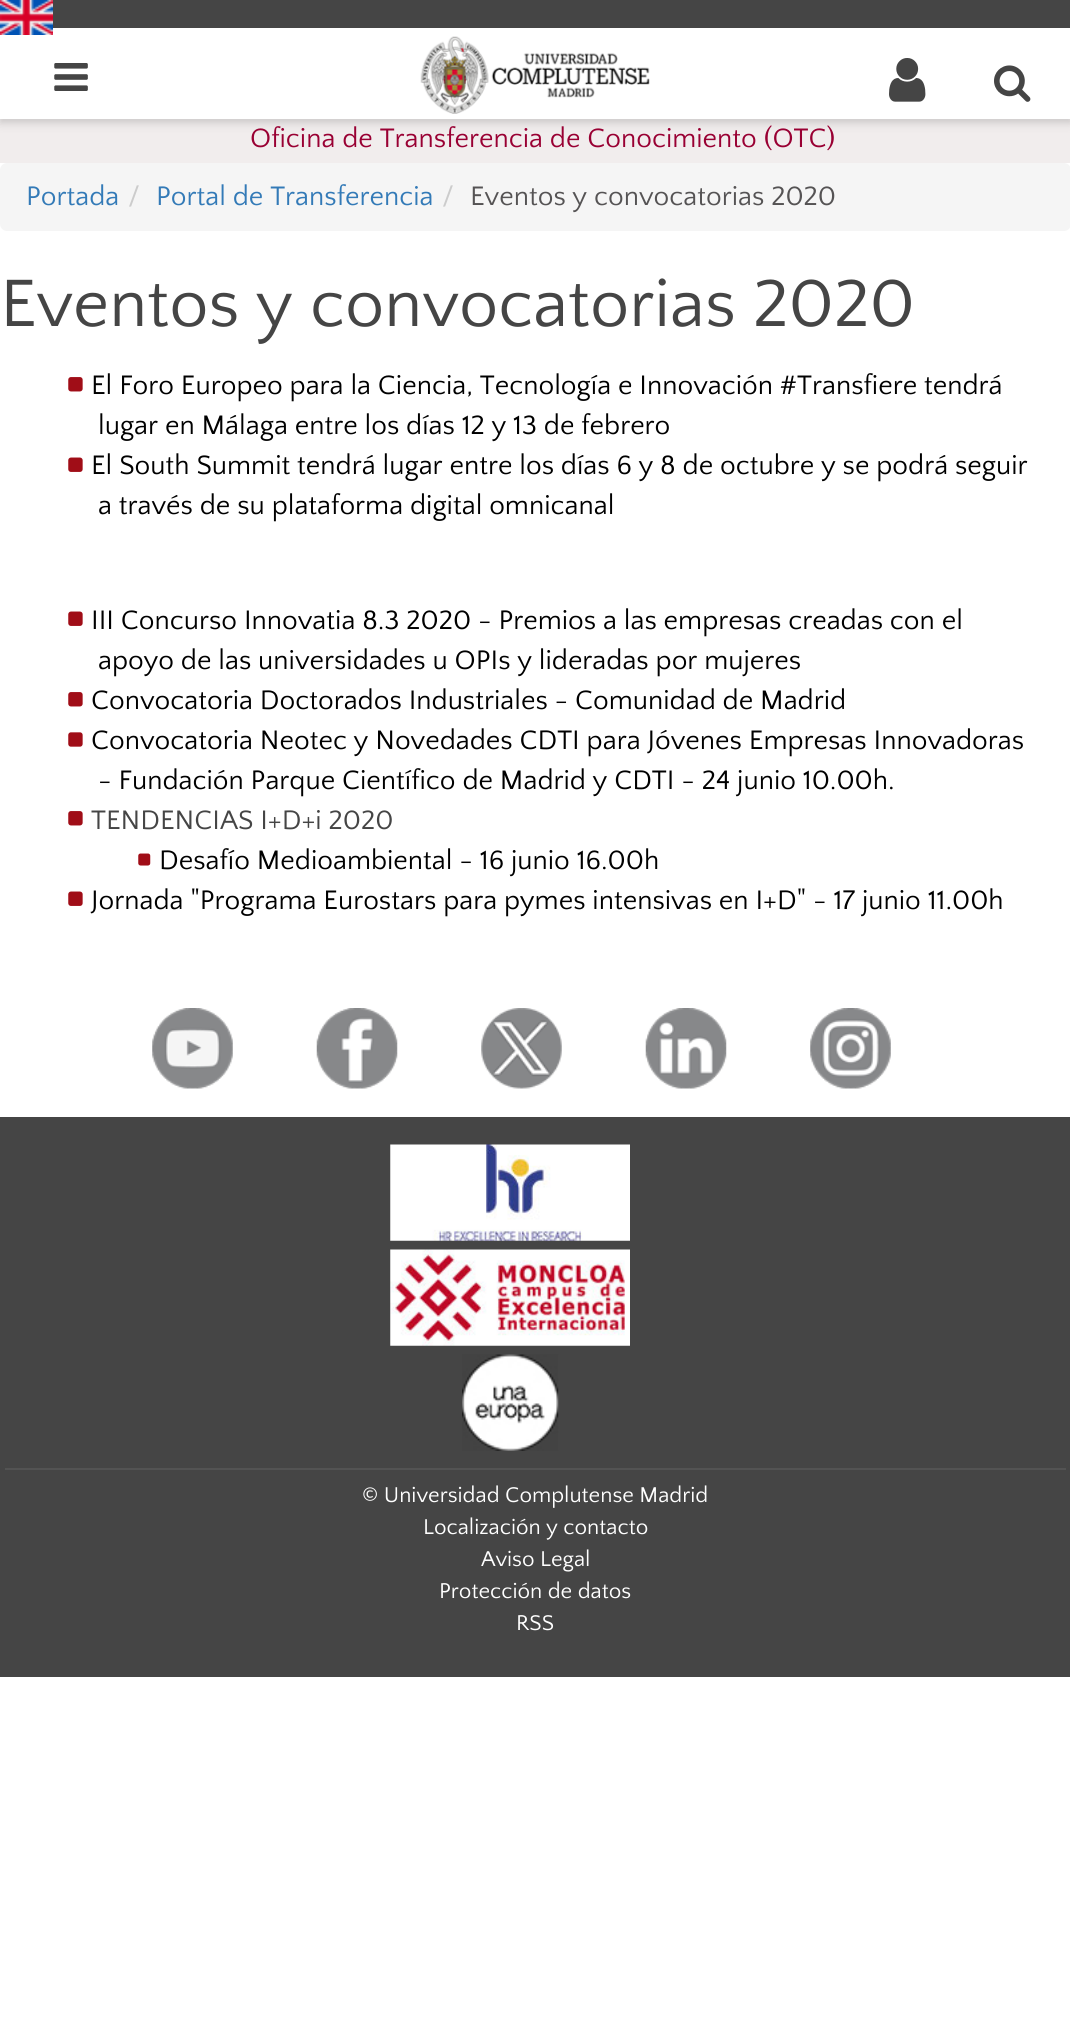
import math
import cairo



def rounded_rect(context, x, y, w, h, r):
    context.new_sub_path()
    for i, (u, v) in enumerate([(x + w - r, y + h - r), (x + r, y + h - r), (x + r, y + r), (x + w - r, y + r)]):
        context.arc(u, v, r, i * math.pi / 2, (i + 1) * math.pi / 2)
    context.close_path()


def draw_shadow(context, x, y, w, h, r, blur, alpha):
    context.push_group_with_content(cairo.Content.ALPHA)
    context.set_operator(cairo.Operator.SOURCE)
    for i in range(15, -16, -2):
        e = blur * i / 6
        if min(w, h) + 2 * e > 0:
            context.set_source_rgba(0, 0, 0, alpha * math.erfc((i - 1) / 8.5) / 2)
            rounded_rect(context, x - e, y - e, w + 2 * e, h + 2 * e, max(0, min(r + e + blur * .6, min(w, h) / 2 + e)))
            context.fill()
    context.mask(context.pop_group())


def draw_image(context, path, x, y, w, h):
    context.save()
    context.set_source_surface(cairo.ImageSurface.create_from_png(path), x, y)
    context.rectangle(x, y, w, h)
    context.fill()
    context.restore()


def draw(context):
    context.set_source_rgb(1, 1, 1)
    context.paint()
    context.set_source_rgb(241 / 255, 237 / 255, 237 / 255)
    context.rectangle(0, 119, 1070, 44)
    context.fill()
    context.set_source_rgb(50 / 255, 50 / 255, 50 / 255)
    draw_shadow(context, 0, 32, 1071, 91, 0, 4.5, 0.2)
    context.set_source_rgb(1, 1, 1)
    context.rectangle(0, 28, 1070, 91)
    context.fill()
    draw_image(context, "images/1.png", 54, 63, 34, 28)
    context.set_source_rgb(69 / 255, 69 / 255, 69 / 255)
    context.rectangle(53, 0, 1017, 28)
    context.fill()
    draw_image(context, "images/2.png", 0, 0, 53, 35)
    draw_image(context, "images/3.png", 889, 58, 37, 44)
    draw_image(context, "images/4.png", 994, 65, 37, 37)
    draw_image(context, "images/5.png", 420, 36, 230, 78)
    context.set_source_rgb(245 / 255, 245 / 255, 245 / 255)
    rounded_rect(context, 0, 163, 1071, 68, 7)
    context.fill()
    draw_image(context, "images/6.png", 68, 377, 15, 15)
    draw_image(context, "images/7.png", 68, 457, 15, 15)
    draw_image(context, "images/7.png", 68, 611, 15, 15)
    draw_image(context, "images/6.png", 68, 692, 15, 15)
    draw_image(context, "images/8.png", 68, 732, 15, 15)
    draw_image(context, "images/6.png", 68, 811, 15, 15)
    draw_image(context, "images/9.png", 138, 853, 13, 13)
    draw_image(context, "images/7.png", 68, 891, 15, 15)
    draw_image(context, "images/10.png", 152, 1008, 81, 81)
    draw_image(context, "images/11.png", 316, 1008, 82, 81)
    draw_image(context, "images/12.png", 481, 1008, 81, 81)
    draw_image(context, "images/13.png", 645, 1008, 82, 81)
    draw_image(context, "images/14.png", 810, 1008, 81, 81)
    context.set_source_rgb(69 / 255, 69 / 255, 69 / 255)
    context.rectangle(0, 1117, 1070, 560)
    context.fill()
    draw_image(context, "images/15.png", 390, 1144, 240, 97)
    draw_image(context, "images/16.png", 390, 1249, 240, 97)
    draw_image(context, "images/17.png", 462, 1354, 97, 97)
    context.set_source_rgb(83 / 255, 83 / 255, 83 / 255)
    context.rectangle(5, 1468, 1061, 2)
    context.fill()
    context.select_font_face("Quattrocento Sans")
    context.set_font_size(28)
    context.set_source_rgb(153 / 255, 0, 51 / 255)
    context.move_to(250, 147)
    context.show_text("Oficina de Transferencia de Conocimiento (OTC)")
    context.set_source_rgb(51 / 255, 122 / 255, 183 / 255)
    context.move_to(26, 205)
    context.show_text("Portada")
    context.set_source_rgb(204 / 255, 204 / 255, 204 / 255)
    context.move_to(128, 205)
    context.show_text("/")
    context.set_source_rgb(51 / 255, 122 / 255, 183 / 255)
    context.move_to(156, 205)
    context.show_text("Portal de Transferencia")
    context.set_source_rgb(204 / 255, 204 / 255, 204 / 255)
    context.move_to(442, 205)
    context.show_text("/")
    context.set_source_rgb(85 / 255, 83 / 255, 84 / 255)
    context.move_to(470, 205)
    context.show_text("Eventos y convocatorias 2020")
    context.set_font_size(70)
    context.set_source_rgb(69 / 255, 69 / 255, 69 / 255)
    context.move_to(0, 326)
    context.show_text("Eventos y convocatorias 2020")
    context.set_font_size(28)
    context.set_source_rgb(0, 0, 0)
    context.move_to(91, 394)
    context.show_text("El Foro Europeo para la Ciencia, Tecnología e Innovación #Transfiere tendrá")
    context.move_to(98, 434)
    context.show_text("lugar en Málaga entre los días 12 y 13 de febrero")
    context.move_to(91, 474)
    context.show_text("El South Summit tendrá lugar entre los días 6 y 8 de octubre y se podrá seguir")
    context.move_to(98, 514)
    context.show_text("a través de su plataforma digital omnicanal")
    context.move_to(91, 629)
    context.show_text("III Concurso Innovatia 8.3 2020 - Premios a las empresas creadas con el")
    context.move_to(98, 669)
    context.show_text("apoyo de las universidades u OPIs y lideradas por mujeres")
    context.move_to(91, 709)
    context.show_text("Convocatoria Doctorados Industriales - Comunidad de Madrid")
    context.move_to(91, 749)
    context.show_text("Convocatoria Neotec y Novedades CDTI para Jóvenes Empresas Innovadoras")
    context.move_to(98, 789)
    context.show_text("- Fundación Parque Científico de Madrid y CDTI - 24 junio 10.00h.")
    context.set_source_rgb(69 / 255, 69 / 255, 69 / 255)
    context.move_to(91, 829)
    context.show_text("TENDENCIAS I+D+i 2020")
    context.set_source_rgb(0, 0, 0)
    context.move_to(159, 869)
    context.show_text("Desafío Medioambiental - 16 junio 16.00h")
    context.move_to(91, 909)
    context.show_text("Jornada \"Programa Eurostars para pymes intensivas en I+D\" - 17 junio 11.00h")
    context.set_font_size(22.4)
    context.set_source_rgb(1, 1, 1)
    context.move_to(362, 1502)
    context.show_text("© Universidad Complutense Madrid")
    context.move_to(423, 1534)
    context.show_text("Localización y contacto")
    context.move_to(481, 1566)
    context.show_text("Aviso Legal")
    context.move_to(439, 1598)
    context.show_text("Protección de datos")
    context.move_to(516, 1630)
    context.show_text("RSS")


surface = cairo.ImageSurface(cairo.Format.RGB24, 1070, 2019)
context = cairo.Context(surface)
options = cairo.FontOptions()
options.set_hint_metrics(cairo.HintMetrics.OFF)
options.set_hint_style(cairo.HintStyle.NONE)
context.set_font_options(options)
context.set_miter_limit(4)
draw(context)
surface.write_to_png("out.png")
